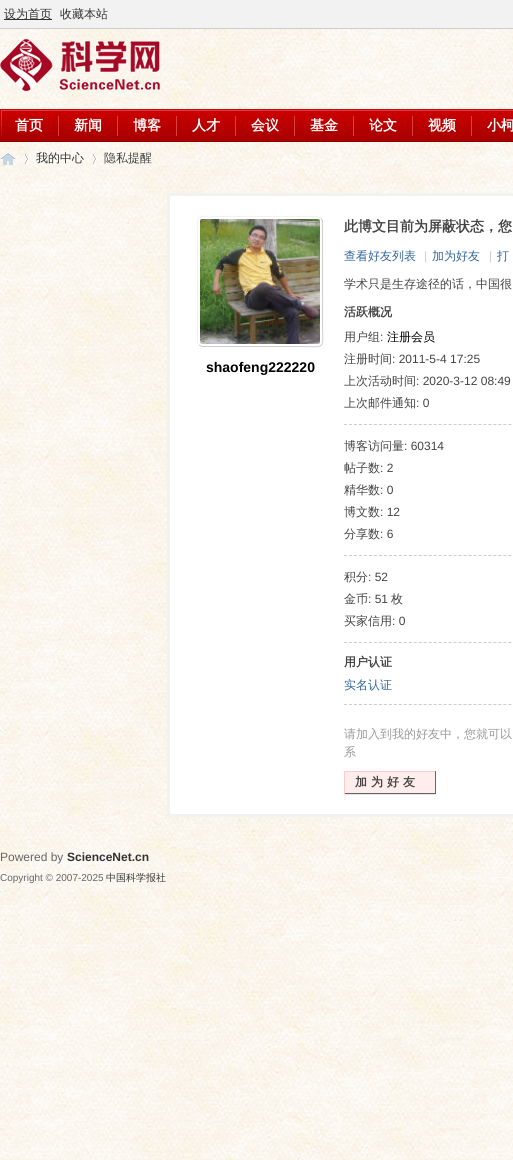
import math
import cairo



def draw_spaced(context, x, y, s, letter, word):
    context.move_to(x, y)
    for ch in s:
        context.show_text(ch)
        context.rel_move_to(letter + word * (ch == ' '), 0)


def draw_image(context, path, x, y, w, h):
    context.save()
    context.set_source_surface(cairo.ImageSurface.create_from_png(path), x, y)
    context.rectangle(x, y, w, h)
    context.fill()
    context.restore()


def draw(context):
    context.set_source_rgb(1, 1, 1)
    context.paint()
    draw_image(context, "images/1.png", 0, 29, 513, 1131)
    context.set_source_rgb(242 / 255, 242 / 255, 242 / 255)
    context.rectangle(0, 0, 513, 28)
    context.fill()
    context.set_source_rgb(205 / 255, 205 / 255, 205 / 255)
    context.rectangle(0, 28, 513, 1)
    context.fill()
    context.set_source_rgb(51 / 255, 51 / 255, 51 / 255)
    context.rectangle(4, 19, 48, 1)
    context.fill()
    draw_image(context, "images/2.png", 0, 39, 160, 52)
    draw_image(context, "images/3.png", 0, 109, 513, 33)
    context.set_source_rgb(217 / 255, 64 / 255, 64 / 255)
    context.rectangle(58, 116, 1, 20)
    context.fill()
    context.rectangle(117, 116, 1, 20)
    context.fill()
    context.rectangle(176, 116, 1, 20)
    context.fill()
    context.rectangle(235, 116, 1, 20)
    context.fill()
    context.rectangle(294, 116, 1, 20)
    context.fill()
    context.rectangle(353, 116, 1, 20)
    context.fill()
    context.rectangle(412, 116, 1, 20)
    context.fill()
    context.rectangle(471, 116, 1, 20)
    context.fill()
    draw_image(context, "images/4.png", 0, 153, 16, 12)
    draw_image(context, "images/5.png", 25, 154, 4, 10)
    draw_image(context, "images/6.png", 93, 154, 4, 10)
    context.set_source_rgb(1, 1, 1)
    context.rectangle(168.5, 194.5, 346, 621)
    context.fill_preserve()
    context.set_source_rgb(242 / 255, 242 / 255, 242 / 255)
    context.set_line_width(3)
    context.stroke()
    context.new_path()
    context.move_to(321, 218)
    context.line_to(322.5, 221)
    context.line_to(322.5, 322)
    context.curve_to(322.5, 351, 327.5, 346.5, 298.5, 346.5)
    context.line_to(202, 346.5)
    context.line_to(199, 345)
    context.set_source_rgb(205 / 255, 205 / 255, 205 / 255)
    context.set_line_width(1)
    context.stroke()
    context.new_path()
    context.move_to(199, 345)
    context.line_to(197.5, 342)
    context.line_to(197.5, 241)
    context.curve_to(197.5, 212, 192.5, 216.5, 221.5, 216.5)
    context.line_to(318, 216.5)
    context.line_to(321, 218)
    context.set_source_rgb(242 / 255, 242 / 255, 242 / 255)
    context.stroke()
    draw_image(context, "images/7.png", 200, 219, 120, 125)
    context.new_path()
    context.move_to(344, 424.5)
    context.line_to(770, 424.5)
    context.set_source_rgb(205 / 255, 205 / 255, 205 / 255)
    context.set_dash([3, 1.98])
    context.stroke()
    context.new_path()
    context.move_to(344, 555.5)
    context.line_to(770, 555.5)
    context.stroke()
    context.new_path()
    context.move_to(344, 642.5)
    context.line_to(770, 642.5)
    context.stroke()
    context.new_path()
    context.move_to(344, 704.5)
    context.line_to(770, 704.5)
    context.stroke()
    context.set_source_rgb(229 / 255, 229 / 255, 229 / 255)
    context.rectangle(344, 794, 92, 1)
    context.fill()
    context.set_source_rgb(1, 236 / 255, 236 / 255)
    context.rectangle(345, 772, 90, 21)
    context.fill()
    context.set_source_rgb(1, 204 / 255, 204 / 255)
    context.rectangle(344, 771, 92, 1)
    context.fill()
    context.set_source_rgb(102 / 255, 102 / 255, 102 / 255)
    context.rectangle(435, 771, 1, 23)
    context.fill()
    context.rectangle(344, 793, 92, 1)
    context.fill()
    context.set_source_rgb(1, 204 / 255, 204 / 255)
    context.rectangle(344, 771, 1, 23)
    context.fill()
    context.select_font_face("WenQuanYi Zen Hei Medium")
    context.set_font_size(12)
    context.set_source_rgb(51 / 255, 51 / 255, 51 / 255)
    context.move_to(4, 18)
    context.show_text("设为首页")
    context.move_to(60, 18)
    context.show_text("收藏本站")
    context.select_font_face("WenQuanYi Zen Hei", cairo.FontSlant.NORMAL, cairo.FontWeight.BOLD)
    context.set_font_size(14)
    context.set_source_rgb(1, 1, 1)
    context.move_to(15, 130)
    context.show_text("首页")
    context.move_to(74, 130)
    context.show_text("新闻")
    context.move_to(133, 130)
    context.show_text("博客")
    context.move_to(192, 130)
    context.show_text("人才")
    context.move_to(251, 130)
    context.show_text("会议")
    context.move_to(310, 130)
    context.show_text("基金")
    context.move_to(369, 130)
    context.show_text("论文")
    context.move_to(428, 130)
    context.show_text("视频")
    context.move_to(487, 130)
    context.show_text("小柯")
    context.select_font_face("WenQuanYi Zen Hei Medium")
    context.set_font_size(12)
    context.set_source_rgb(51 / 255, 51 / 255, 51 / 255)
    context.move_to(36, 162)
    context.show_text("我的中心")
    context.set_source_rgb(68 / 255, 68 / 255, 68 / 255)
    context.move_to(104, 162)
    context.show_text("隐私提醒")
    context.select_font_face("Liberation Sans", cairo.FontSlant.NORMAL, cairo.FontWeight.BOLD)
    context.set_font_size(14)
    context.set_source_rgb(0, 0, 0)
    context.move_to(206, 372)
    context.show_text("shaofeng222220")
    context.select_font_face("WenQuanYi Zen Hei", cairo.FontSlant.NORMAL, cairo.FontWeight.BOLD)
    context.set_source_rgb(68 / 255, 68 / 255, 68 / 255)
    context.move_to(344, 231)
    context.show_text("此博文目前为屏蔽状态，您")
    context.select_font_face("WenQuanYi Zen Hei Medium")
    context.set_font_size(12)
    context.set_source_rgb(51 / 255, 102 / 255, 153 / 255)
    context.move_to(344, 260)
    context.show_text("查看好友列表")
    context.select_font_face("Liberation Sans")
    context.set_source_rgb(204 / 255, 204 / 255, 204 / 255)
    context.move_to(424, 260)
    context.show_text("|")
    context.select_font_face("WenQuanYi Zen Hei Medium")
    context.set_source_rgb(51 / 255, 102 / 255, 153 / 255)
    context.move_to(432, 260)
    context.show_text("加为好友")
    context.select_font_face("Liberation Sans")
    context.set_source_rgb(204 / 255, 204 / 255, 204 / 255)
    context.move_to(489, 260)
    context.show_text("|")
    context.select_font_face("WenQuanYi Zen Hei Medium")
    context.set_source_rgb(51 / 255, 102 / 255, 153 / 255)
    context.move_to(497, 260)
    context.show_text("打")
    context.set_source_rgb(68 / 255, 68 / 255, 68 / 255)
    context.move_to(344, 288)
    context.show_text("学术只是生存途径的话，中国很")
    context.select_font_face("WenQuanYi Zen Hei", cairo.FontSlant.NORMAL, cairo.FontWeight.BOLD)
    context.move_to(344, 316)
    context.show_text("活跃概况")
    context.select_font_face("WenQuanYi Zen Hei Medium")
    context.move_to(344, 341)
    context.show_text("用户组")
    context.select_font_face("Liberation Sans")
    context.move_to(380, 341)
    context.show_text(":")
    context.select_font_face("WenQuanYi Zen Hei Medium")
    context.set_source_rgb(0, 0, 0)
    context.move_to(387, 341)
    context.show_text("注册会员")
    context.set_source_rgb(68 / 255, 68 / 255, 68 / 255)
    context.move_to(344, 363)
    context.show_text("注册时间")
    context.select_font_face("Liberation Sans")
    context.move_to(392, 363)
    context.show_text(": 2011-5-4 17:25")
    context.select_font_face("WenQuanYi Zen Hei Medium")
    context.move_to(344, 385)
    context.show_text("上次活动时间")
    context.select_font_face("Liberation Sans")
    context.move_to(416, 385)
    context.show_text(": 2020-3-12 08:49")
    context.select_font_face("WenQuanYi Zen Hei Medium")
    context.move_to(344, 407)
    context.show_text("上次邮件通知")
    context.select_font_face("Liberation Sans")
    context.move_to(416, 407)
    context.show_text(": 0")
    context.select_font_face("WenQuanYi Zen Hei Medium")
    context.move_to(344, 450)
    context.show_text("博客访问量")
    context.select_font_face("Liberation Sans")
    context.move_to(404, 450)
    context.show_text(": 60314")
    context.select_font_face("WenQuanYi Zen Hei Medium")
    context.move_to(344, 472)
    context.show_text("帖子数")
    context.select_font_face("Liberation Sans")
    context.move_to(380, 472)
    context.show_text(": 2")
    context.select_font_face("WenQuanYi Zen Hei Medium")
    context.move_to(344, 494)
    context.show_text("精华数")
    context.select_font_face("Liberation Sans")
    context.move_to(380, 494)
    context.show_text(": 0")
    context.select_font_face("WenQuanYi Zen Hei Medium")
    context.move_to(344, 516)
    context.show_text("博文数")
    context.select_font_face("Liberation Sans")
    context.move_to(380, 516)
    context.show_text(": 12")
    context.select_font_face("WenQuanYi Zen Hei Medium")
    context.move_to(344, 538)
    context.show_text("分享数")
    context.select_font_face("Liberation Sans")
    context.move_to(380, 538)
    context.show_text(": 6")
    context.select_font_face("WenQuanYi Zen Hei Medium")
    context.move_to(344, 581)
    context.show_text("积分")
    context.select_font_face("Liberation Sans")
    context.move_to(368, 581)
    context.show_text(": 52")
    context.select_font_face("WenQuanYi Zen Hei Medium")
    context.move_to(344, 603)
    context.show_text("金币")
    context.select_font_face("Liberation Sans")
    context.move_to(368, 603)
    context.show_text(": 51")
    context.select_font_face("WenQuanYi Zen Hei Medium")
    context.move_to(391, 603)
    context.show_text("枚")
    context.move_to(344, 625)
    context.show_text("买家信用")
    context.select_font_face("Liberation Sans")
    context.move_to(392, 625)
    context.show_text(": 0")
    context.select_font_face("WenQuanYi Zen Hei", cairo.FontSlant.NORMAL, cairo.FontWeight.BOLD)
    context.move_to(344, 666)
    context.show_text("用户认证")
    context.select_font_face("WenQuanYi Zen Hei Medium")
    context.set_source_rgb(51 / 255, 102 / 255, 153 / 255)
    context.move_to(344, 689)
    context.show_text("实名认证")
    context.set_source_rgb(153 / 255, 153 / 255, 153 / 255)
    context.move_to(344, 738)
    context.show_text("请加入到我的好友中，您就可以")
    context.move_to(344, 756)
    context.show_text("系")
    context.select_font_face("WenQuanYi Zen Hei", cairo.FontSlant.NORMAL, cairo.FontWeight.BOLD)
    context.set_source_rgb(68 / 255, 68 / 255, 68 / 255)
    draw_spaced(context, 355, 786, "加为好友", 4, 0)
    context.select_font_face("Liberation Sans")
    context.set_source_rgb(102 / 255, 102 / 255, 102 / 255)
    context.move_to(0, 861)
    context.show_text("Powered by")
    context.select_font_face("Liberation Sans", cairo.FontSlant.NORMAL, cairo.FontWeight.BOLD)
    context.set_source_rgb(51 / 255, 51 / 255, 51 / 255)
    context.move_to(67, 861)
    context.show_text("ScienceNet.cn")
    context.select_font_face("Liberation Sans")
    context.set_font_size(10)
    context.set_source_rgb(102 / 255, 102 / 255, 102 / 255)
    context.move_to(0, 881)
    context.show_text("Copyright © 2007-2025")
    context.select_font_face("WenQuanYi Zen Hei Medium")
    context.set_source_rgb(51 / 255, 51 / 255, 51 / 255)
    context.move_to(106, 881)
    context.show_text("中国科学报社")


surface = cairo.ImageSurface(cairo.Format.RGB24, 513, 1160)
context = cairo.Context(surface)
options = cairo.FontOptions()
options.set_hint_metrics(cairo.HintMetrics.OFF)
options.set_hint_style(cairo.HintStyle.NONE)
context.set_font_options(options)
context.set_miter_limit(4)
draw(context)
surface.write_to_png("out.png")
